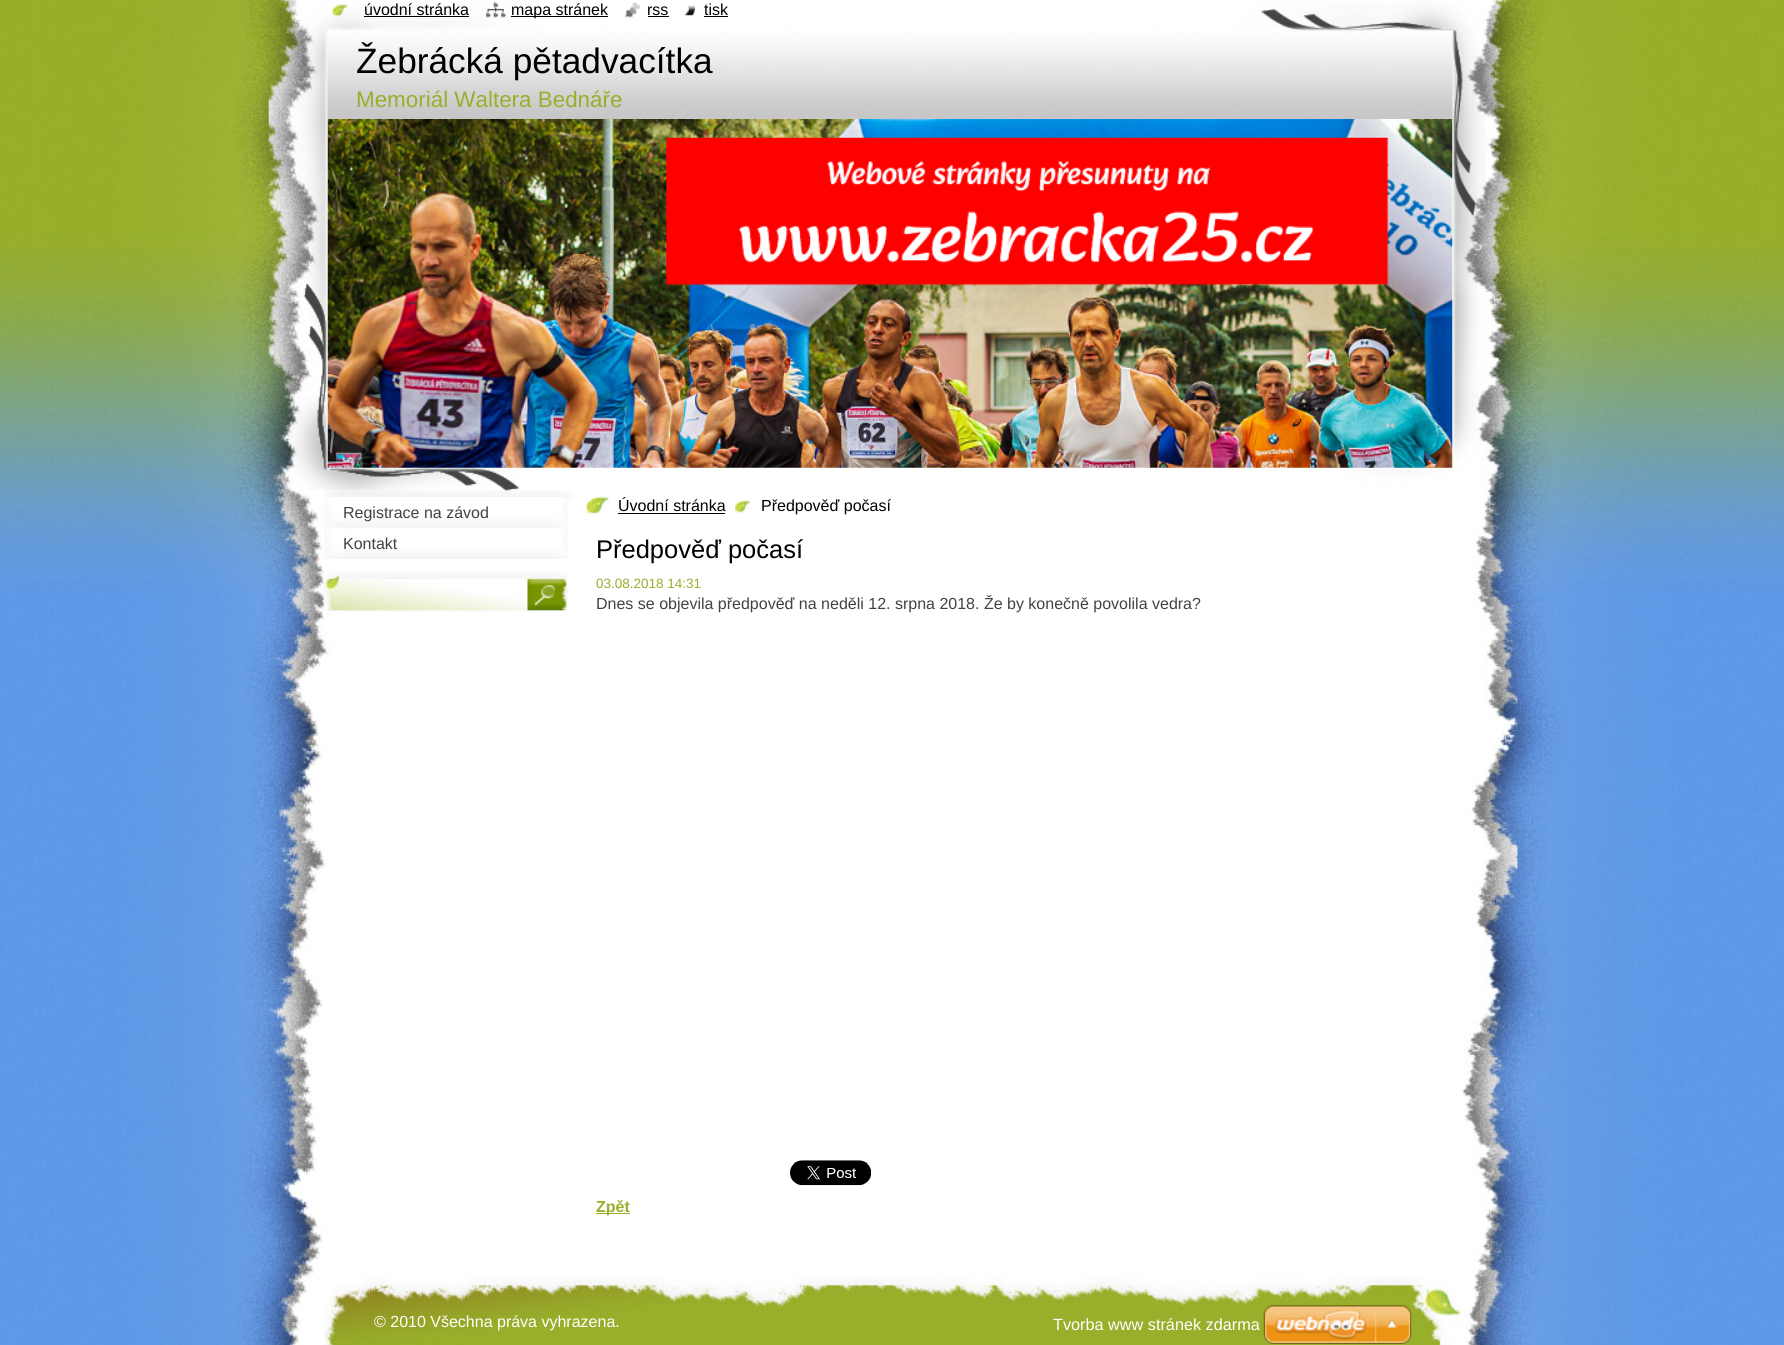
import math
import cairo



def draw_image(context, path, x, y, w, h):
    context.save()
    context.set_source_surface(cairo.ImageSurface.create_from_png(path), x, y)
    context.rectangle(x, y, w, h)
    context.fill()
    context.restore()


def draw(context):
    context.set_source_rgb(1, 1, 1)
    context.paint()
    draw_image(context, "images/1.png", 0, 591, 1784, 754)
    draw_image(context, "images/2.png", 0, 0, 1784, 591)
    draw_image(context, "images/9.png", 324, 490, 250, 11)
    draw_image(context, "images/7.png", 290, 1, 1196, 490)
    draw_image(context, "images/3.png", 332, 4, 16, 13)
    context.set_source_rgb(0, 0, 0)
    context.rectangle(364, 16, 105, 1)
    context.fill()
    draw_image(context, "images/4.png", 486, 1, 21, 17)
    context.rectangle(511, 16, 97, 1)
    context.fill()
    draw_image(context, "images/5.png", 625, 2, 15, 16)
    context.rectangle(648, 16, 21, 1)
    context.fill()
    draw_image(context, "images/6.png", 685, 5, 10, 11)
    context.rectangle(704, 16, 24, 1)
    context.fill()
    draw_image(context, "images/8.png", 327, 119, 1126, 349)
    draw_image(context, "images/10.png", 324, 497, 245, 31)
    draw_image(context, "images/11.png", 324, 528, 245, 31)
    draw_image(context, "images/12.png", 323, 571, 205, 41)
    draw_image(context, "images/13.png", 527, 571, 42, 41)
    draw_image(context, "images/14.png", 586, 496, 23, 18)
    context.rectangle(618, 513, 107, 1)
    context.fill()
    draw_image(context, "images/15.png", 735, 500, 15, 13)
    draw_image(context, "images/16.png", 790, 1160, 82, 26)
    context.set_source_rgb(152 / 255, 175 / 255, 43 / 255)
    context.rectangle(596, 1213, 34, 1)
    context.fill()
    draw_image(context, "images/17.png", 324, 1276, 1138, 69)
    draw_image(context, "images/18.png", 1263, 1305, 149, 39)
    context.select_font_face("Liberation Sans")
    context.set_font_size(16)
    context.set_source_rgb(0, 0, 0)
    context.move_to(364, 15)
    context.show_text("úvodní stránka")
    context.move_to(511, 15)
    context.show_text("mapa stránek")
    context.move_to(647, 15)
    context.show_text("rss")
    context.move_to(704, 15)
    context.show_text("tisk")
    context.set_font_size(35.25)
    context.move_to(356, 73)
    context.show_text("Žebrácká pětadvacítka")
    context.set_font_size(22.4)
    context.set_source_rgb(152 / 255, 175 / 255, 43 / 255)
    context.move_to(356, 107)
    context.show_text("Memoriál Waltera Bednáře")
    context.set_font_size(16)
    context.set_source_rgb(69 / 255, 65 / 255, 67 / 255)
    context.move_to(343, 518)
    context.show_text("Registrace na závod")
    context.move_to(343, 549)
    context.show_text("Kontakt")
    context.set_source_rgb(0, 0, 0)
    context.move_to(618, 511)
    context.show_text("Úvodní stránka")
    context.move_to(761, 511)
    context.show_text("Předpověď počasí")
    context.set_font_size(25.5)
    context.move_to(596, 558)
    context.show_text("Předpověď počasí")
    context.set_font_size(13.5)
    context.set_source_rgb(152 / 255, 175 / 255, 43 / 255)
    context.move_to(596, 588)
    context.show_text("03.08.2018 14:31")
    context.set_font_size(16)
    context.set_source_rgb(69 / 255, 65 / 255, 67 / 255)
    context.move_to(596, 609)
    context.show_text("Dnes se objevila předpověď na neděli 12. srpna 2018. Že by konečně povolila vedra?")
    context.select_font_face("Liberation Sans", cairo.FontSlant.NORMAL, cairo.FontWeight.BOLD)
    context.set_source_rgb(152 / 255, 175 / 255, 43 / 255)
    context.move_to(596, 1212)
    context.show_text("Zpět")
    context.select_font_face("Liberation Sans")
    context.set_source_rgb(1, 1, 1)
    context.move_to(374, 1327)
    context.show_text("© 2010 Všechna práva vyhrazena.")
    context.set_font_size(16.25)
    context.move_to(1053, 1330)
    context.show_text("Tvorba www stránek zdarma")


surface = cairo.ImageSurface(cairo.Format.RGB24, 1784, 1345)
context = cairo.Context(surface)
options = cairo.FontOptions()
options.set_hint_metrics(cairo.HintMetrics.OFF)
options.set_hint_style(cairo.HintStyle.NONE)
context.set_font_options(options)
context.set_miter_limit(4)
draw(context)
surface.write_to_png("out.png")
